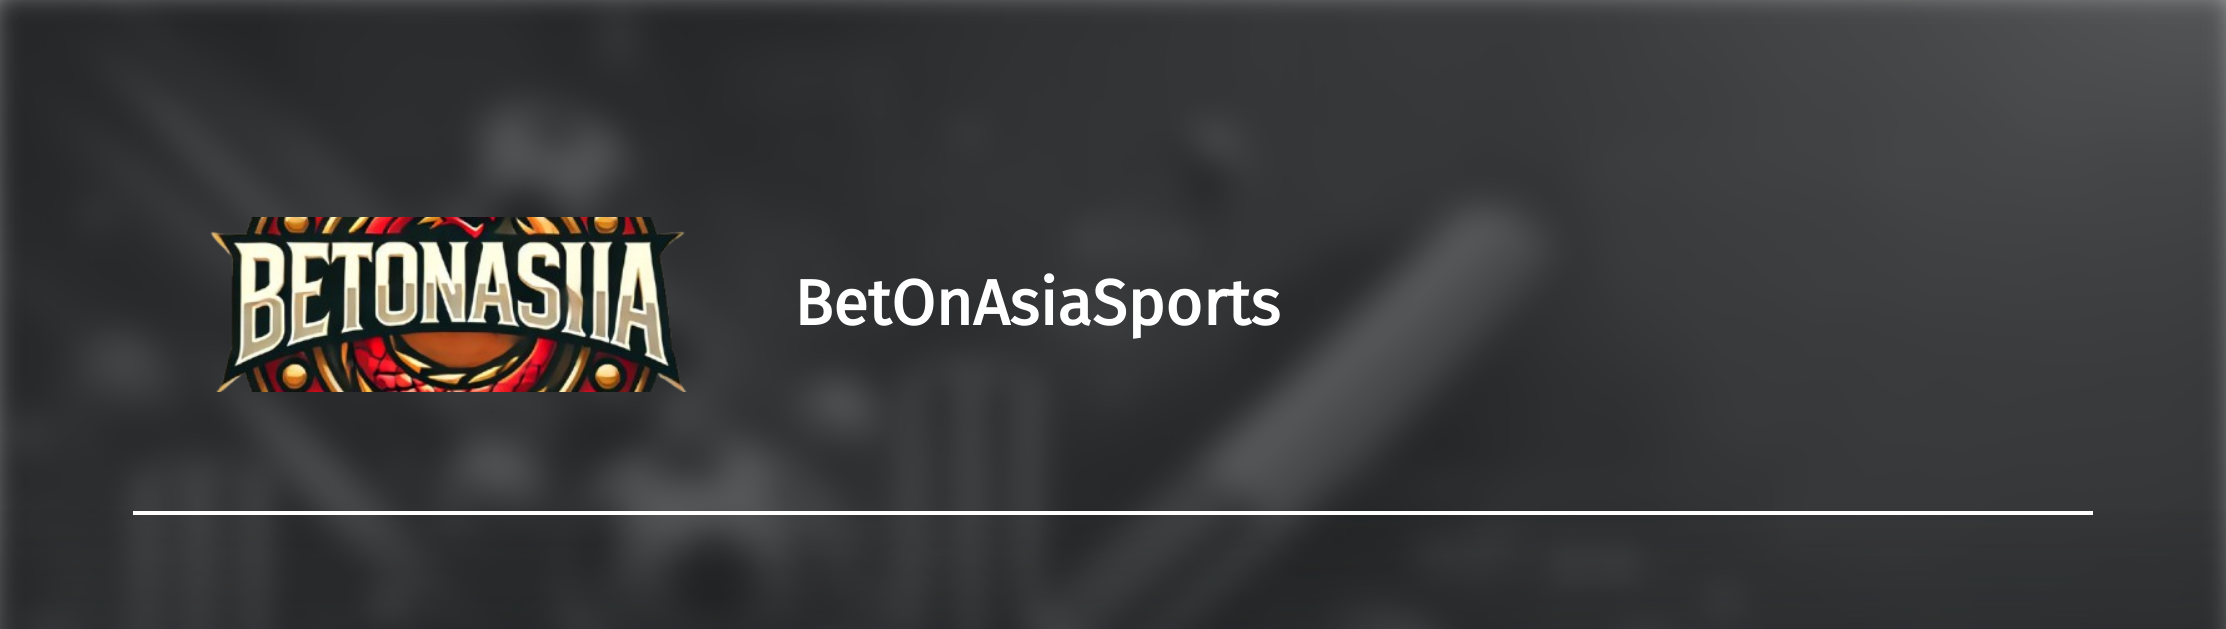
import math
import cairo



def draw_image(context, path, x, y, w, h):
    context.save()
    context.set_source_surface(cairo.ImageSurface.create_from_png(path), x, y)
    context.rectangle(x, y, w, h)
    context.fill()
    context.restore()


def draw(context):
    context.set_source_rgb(1, 1, 1)
    context.paint()
    draw_image(context, "images/1.png", 0, 0, 2226, 629)
    gradient = cairo.LinearGradient(1113, 478, 1113, 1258)
    gradient.add_color_stop_rgba(0, 26 / 255, 28 / 255, 30 / 255, 0)
    gradient.add_color_stop_rgba(1, 26 / 255, 28 / 255, 30 / 255, 1)
    context.set_source(gradient)
    context.rectangle(0, 510, 2226, 119)
    context.fill()
    draw_image(context, "images/2.png", 210, 217, 477, 175)
    context.set_source_rgb(1, 1, 1)
    context.rectangle(133, 511, 1960, 4)
    context.fill()
    context.select_font_face("Fira Sans", cairo.FontSlant.NORMAL, cairo.FontWeight.BOLD)
    context.set_font_size(64)
    context.move_to(794, 325)
    context.show_text("BetOnAsiaSports")


surface = cairo.ImageSurface(cairo.Format.RGB24, 2226, 629)
context = cairo.Context(surface)
options = cairo.FontOptions()
options.set_hint_metrics(cairo.HintMetrics.OFF)
options.set_hint_style(cairo.HintStyle.NONE)
context.set_font_options(options)
context.set_miter_limit(4)
draw(context)
surface.write_to_png("out.png")
